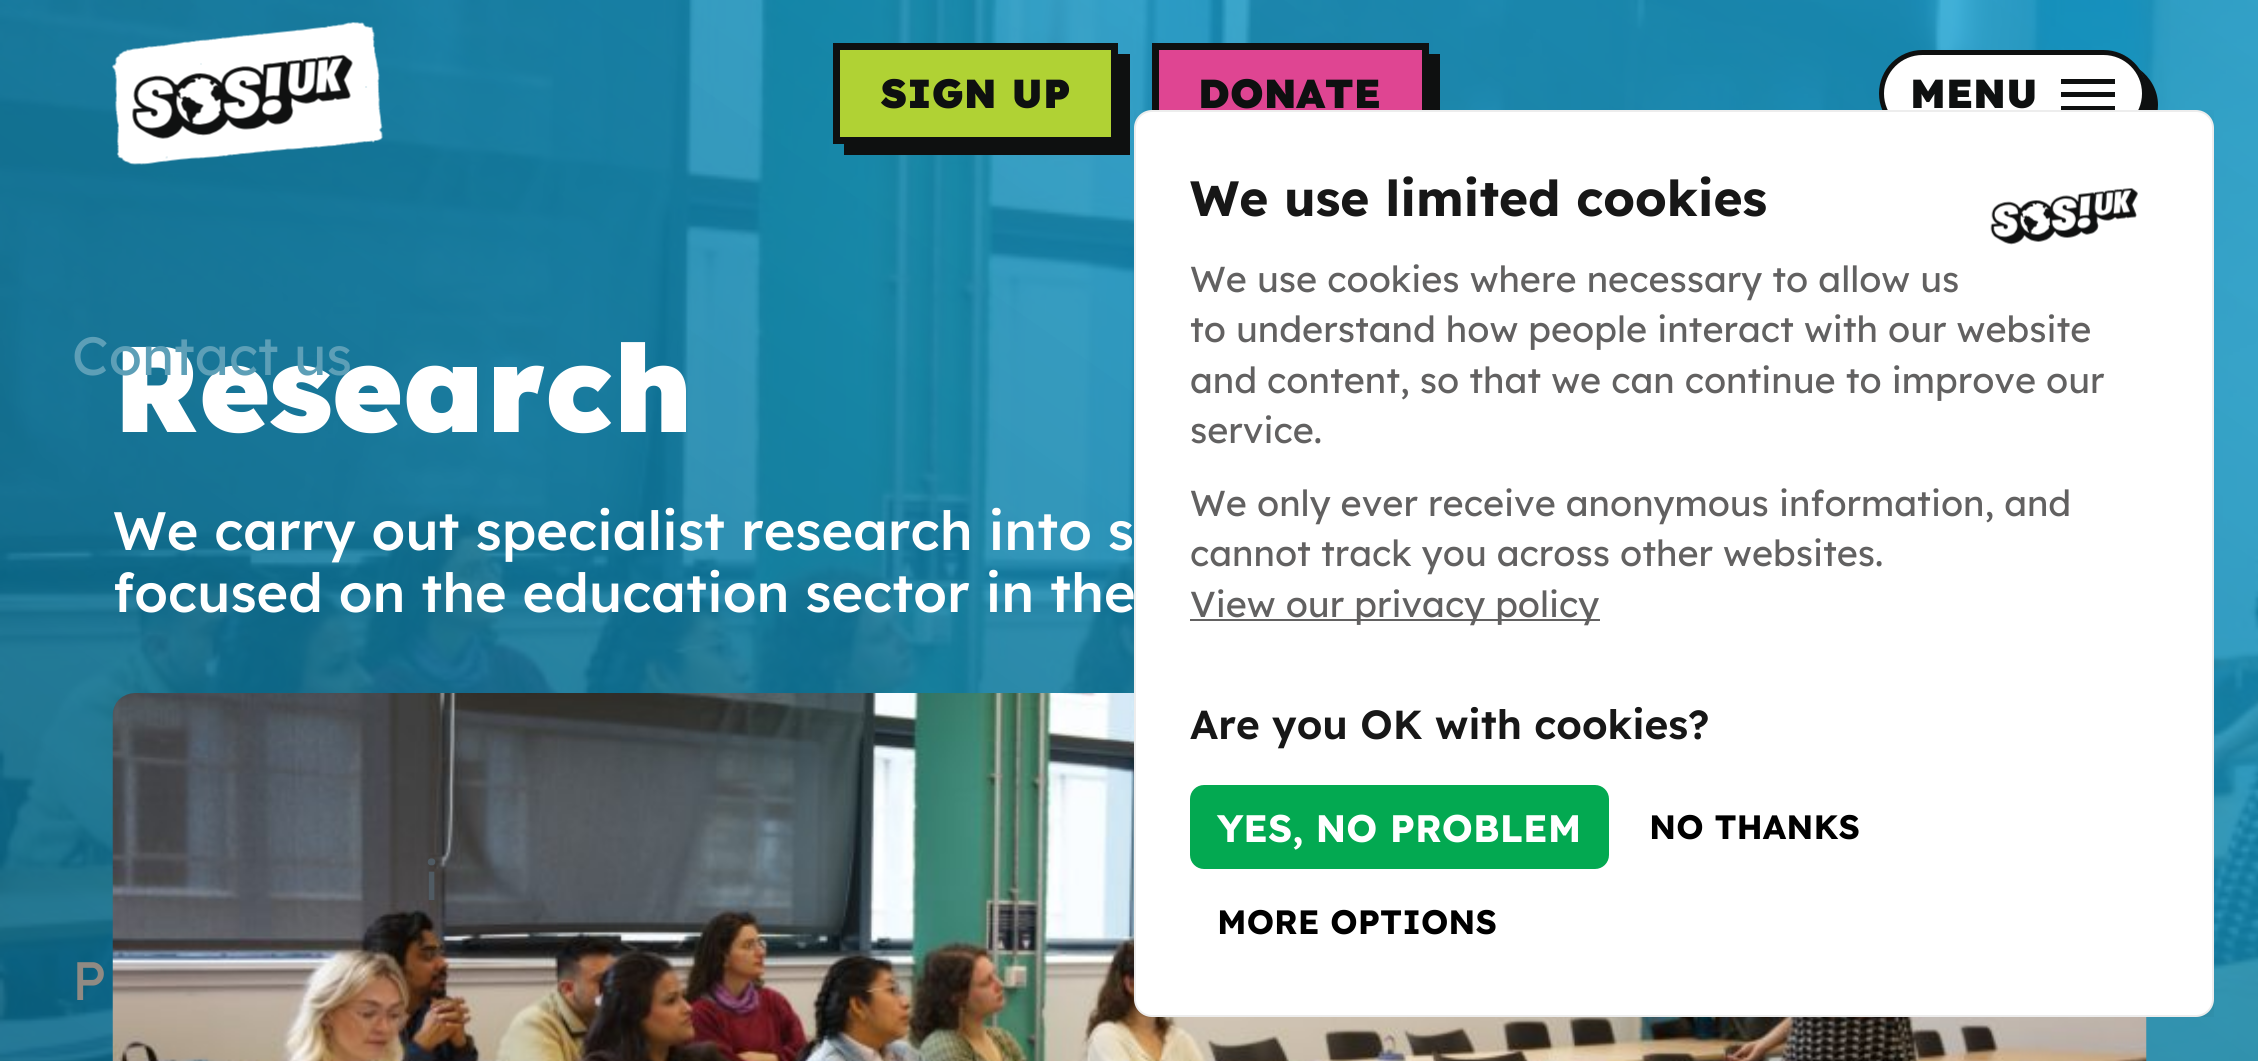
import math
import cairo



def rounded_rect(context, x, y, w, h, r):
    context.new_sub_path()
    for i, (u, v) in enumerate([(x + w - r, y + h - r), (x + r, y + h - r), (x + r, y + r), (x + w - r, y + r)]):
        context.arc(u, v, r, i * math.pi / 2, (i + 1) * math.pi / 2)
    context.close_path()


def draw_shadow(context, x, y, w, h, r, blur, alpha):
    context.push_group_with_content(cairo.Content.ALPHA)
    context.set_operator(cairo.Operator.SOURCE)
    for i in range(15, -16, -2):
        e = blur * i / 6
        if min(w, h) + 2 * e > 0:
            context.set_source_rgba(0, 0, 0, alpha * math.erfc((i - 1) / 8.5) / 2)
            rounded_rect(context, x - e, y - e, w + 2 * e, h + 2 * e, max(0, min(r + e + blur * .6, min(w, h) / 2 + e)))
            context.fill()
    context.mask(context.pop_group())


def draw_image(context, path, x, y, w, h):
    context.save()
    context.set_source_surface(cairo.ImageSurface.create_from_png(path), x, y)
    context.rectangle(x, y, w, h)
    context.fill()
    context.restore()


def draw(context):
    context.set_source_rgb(1, 1, 1)
    context.paint()
    draw_image(context, "images/2.png", 0, 0, 2258, 1061)
    draw_image(context, "images/1.png", 112, 22, 271, 143)
    context.set_source_rgb(14 / 255, 16 / 255, 16 / 255)
    context.new_path()
    context.move_to(844, 144)
    context.line_to(844, 155)
    context.line_to(1130, 155)
    context.line_to(1130, 54)
    context.line_to(1118, 54)
    context.line_to(1118, 144)
    context.close_path()
    context.fill()
    context.set_source_rgb(176 / 255, 210 / 255, 52 / 255)
    context.rectangle(836.5, 46.5, 278, 94)
    context.fill_preserve()
    context.set_source_rgb(14 / 255, 16 / 255, 16 / 255)
    context.set_line_width(7)
    context.stroke()
    context.new_path()
    context.move_to(1163, 144)
    context.line_to(1163, 155)
    context.line_to(1440, 155)
    context.line_to(1440, 54)
    context.line_to(1429, 54)
    context.line_to(1429, 144)
    context.close_path()
    context.fill()
    context.set_source_rgb(223 / 255, 69 / 255, 146 / 255)
    context.rectangle(1159, 50, 263, 60)
    context.fill()
    context.rectangle(1155.5, 46.5, 270, 94)
    context.set_source_rgb(14 / 255, 16 / 255, 16 / 255)
    context.stroke()
    context.new_path()
    context.move_to(1897, 129)
    context.curve_to(1905, 141, 1919, 149, 1934, 149)
    context.line_to(2114, 149)
    context.curve_to(2138, 149, 2158, 129, 2158, 105)
    context.curve_to(2158, 90, 2150, 77, 2139, 69)
    context.curve_to(2144, 76, 2146, 84, 2146, 93)
    context.curve_to(2146, 118, 2127, 137, 2103, 137)
    context.line_to(1923, 137)
    context.curve_to(1913, 137, 1904, 134, 1897, 129)
    context.close_path()
    context.fill()
    context.set_source_rgb(1, 1, 1)
    rounded_rect(context, 1881.5, 52.5, 263, 82, 41)
    context.fill_preserve()
    context.set_source_rgb(14 / 255, 16 / 255, 16 / 255)
    context.set_line_width(5)
    context.stroke()
    context.rectangle(2061, 79, 54, 5)
    context.fill()
    context.rectangle(2061, 92, 54, 5)
    context.fill()
    context.rectangle(2061, 106, 54, 4)
    context.fill()
    draw_image(context, "images/3.png", 112, 693, 2035, 368)
    context.save()
    context.rectangle(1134, 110, 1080, 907)
    context.clip()
    context.set_source_rgb(0, 0, 0)
    draw_shadow(context, 1134, 115, 1080, 907, 18, 7, 0.05)
    draw_shadow(context, 1134, 119, 1080, 907, 18, 27, 0.05)
    context.restore()
    context.set_source_rgb(1, 1, 1)
    rounded_rect(context, 1135, 111, 1078, 905, 17)
    context.fill_preserve()
    context.set_source_rgb(237 / 255, 237 / 255, 237 / 255)
    context.set_line_width(2)
    context.stroke()
    draw_image(context, "images/4.png", 1990, 188, 148, 57)
    context.set_source_rgb(98 / 255, 97 / 255, 97 / 255)
    context.rectangle(1190, 619, 410, 2)
    context.fill()
    context.set_source_rgb(3 / 255, 169 / 255, 81 / 255)
    rounded_rect(context, 1190, 785, 419, 84, 14)
    context.fill()
    context.select_font_face("Lexend Black")
    context.set_font_size(40.5)
    context.set_source_rgb(14 / 255, 16 / 255, 16 / 255)
    context.move_to(881, 108)
    context.show_text("SIGN UP")
    context.move_to(1198, 108)
    context.show_text("DONATE")
    context.move_to(1910, 108)
    context.show_text("MENU")
    context.select_font_face("Lexend")
    context.set_font_size(54)
    context.set_source_rgb(80 / 255, 91 / 255, 99 / 255)
    context.move_to(424, 900)
    context.show_text("i")
    context.set_source_rgb(144 / 255, 138 / 255, 131 / 255)
    context.move_to(72, 1000)
    context.show_text("P")
    context.select_font_face("Lexend Black")
    context.set_font_size(121.5)
    context.set_source_rgb(1, 1, 1)
    context.move_to(113, 432)
    context.show_text("Research")
    context.select_font_face("Lexend")
    context.set_font_size(54)
    context.set_source_rgb(93 / 255, 159 / 255, 183 / 255)
    context.move_to(72, 375)
    context.show_text("Contact us")
    context.select_font_face("Lexend Medium")
    context.set_source_rgb(1, 1, 1)
    context.move_to(113, 550)
    context.show_text("We carry out specialist research into s")
    context.move_to(113, 612)
    context.show_text("focused on the education sector in the")
    context.select_font_face("Lexend", cairo.FontSlant.NORMAL, cairo.FontWeight.BOLD)
    context.set_font_size(49.5)
    context.set_source_rgb(23 / 255, 23 / 255, 23 / 255)
    context.move_to(1190, 216)
    context.show_text("We use limited cookies")
    context.select_font_face("Lexend")
    context.set_font_size(36)
    context.set_source_rgb(98 / 255, 97 / 255, 97 / 255)
    context.move_to(1190, 292)
    context.show_text("We use cookies where necessary to allow us")
    context.move_to(1190, 342)
    context.show_text("to understand how people interact with our website")
    context.move_to(1190, 393)
    context.show_text("and content, so that we can continue to improve our")
    context.move_to(1190, 443)
    context.show_text("service.")
    context.move_to(1190, 516)
    context.show_text("We only ever receive anonymous information, and")
    context.move_to(1190, 566)
    context.show_text("cannot track you across other websites.")
    context.move_to(1190, 617)
    context.show_text("View our privacy policy")
    context.select_font_face("Lexend SemiBold")
    context.set_font_size(40.5)
    context.set_source_rgb(23 / 255, 23 / 255, 23 / 255)
    context.move_to(1190, 739)
    context.show_text("Are you OK with cookies?")
    context.select_font_face("Lexend", cairo.FontSlant.NORMAL, cairo.FontWeight.BOLD)
    context.set_font_size(38.25)
    context.set_source_rgb(1, 1, 1)
    context.move_to(1217, 842)
    context.show_text("YES, NO PROBLEM")
    context.set_font_size(33.75)
    context.set_source_rgb(0, 0, 0)
    context.move_to(1649, 839)
    context.show_text("NO THANKS")
    context.move_to(1217, 934)
    context.show_text("MORE OPTIONS")


surface = cairo.ImageSurface(cairo.Format.RGB24, 2258, 1061)
context = cairo.Context(surface)
options = cairo.FontOptions()
options.set_hint_metrics(cairo.HintMetrics.OFF)
options.set_hint_style(cairo.HintStyle.NONE)
context.set_font_options(options)
context.set_miter_limit(4)
draw(context)
surface.write_to_png("out.png")
